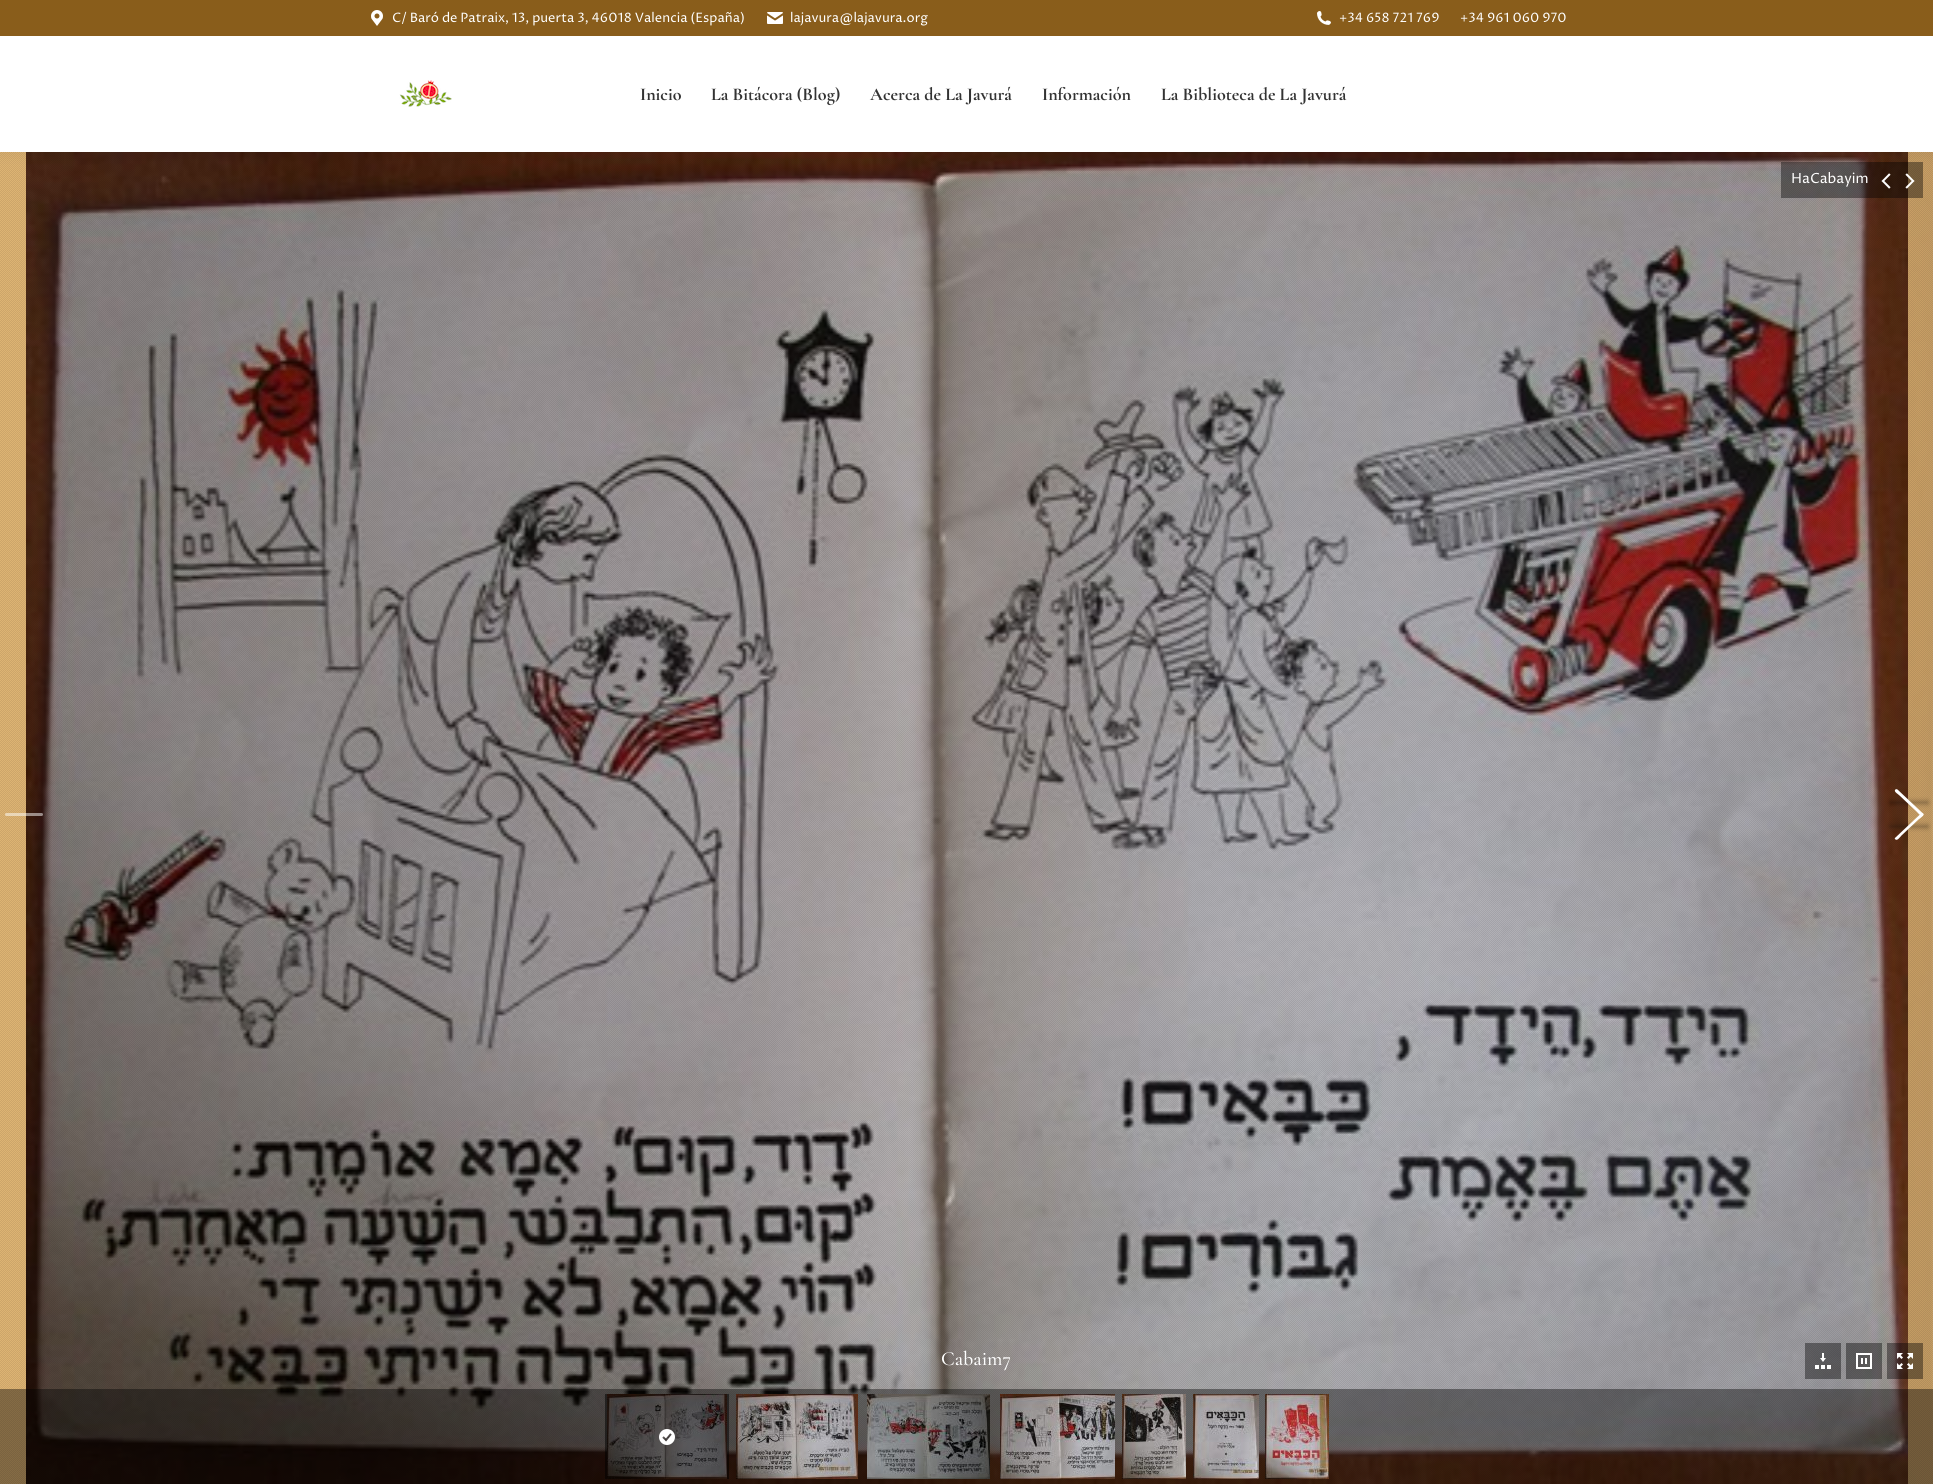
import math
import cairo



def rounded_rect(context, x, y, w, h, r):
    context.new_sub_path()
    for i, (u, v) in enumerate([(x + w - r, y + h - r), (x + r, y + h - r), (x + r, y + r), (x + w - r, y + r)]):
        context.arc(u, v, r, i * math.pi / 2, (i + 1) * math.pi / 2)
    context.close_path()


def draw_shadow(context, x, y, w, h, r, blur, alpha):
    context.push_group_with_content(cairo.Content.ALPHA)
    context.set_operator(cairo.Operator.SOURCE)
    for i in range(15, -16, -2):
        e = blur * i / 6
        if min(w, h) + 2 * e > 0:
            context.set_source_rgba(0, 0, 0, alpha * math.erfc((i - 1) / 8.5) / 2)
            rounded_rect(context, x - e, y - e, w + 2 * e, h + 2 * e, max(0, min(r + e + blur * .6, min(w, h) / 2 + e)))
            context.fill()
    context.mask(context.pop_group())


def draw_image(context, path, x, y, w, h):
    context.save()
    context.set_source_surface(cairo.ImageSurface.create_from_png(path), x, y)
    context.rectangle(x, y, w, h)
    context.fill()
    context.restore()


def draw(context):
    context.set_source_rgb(221 / 255, 179 / 255, 115 / 255)
    context.paint()
    draw_image(context, "images/6.png", 26, 152, 1882, 1332)
    draw_image(context, "images/7.png", 1908, 152, 25, 1332)
    draw_image(context, "images/5.png", 0, 152, 1933, 1332)
    context.set_source_rgba(0, 0, 0, 0.4)
    context.rectangle(1781, 162, 142, 36)
    context.fill()
    draw_image(context, "images/8.png", 1881, 173, 10, 16)
    draw_image(context, "images/9.png", 1905, 173, 10, 16)
    context.set_source_rgb(0, 0, 0)
    draw_shadow(context, -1, -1, 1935, 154, 0, 7.5, 0.07)
    context.set_source_rgb(1, 1, 1)
    context.rectangle(0, 36, 1933, 116)
    context.fill()
    context.set_source_rgb(137 / 255, 93 / 255, 27 / 255)
    context.rectangle(0, 0, 1933, 36)
    context.fill()
    draw_image(context, "images/1.png", 371, 10, 12, 16)
    draw_image(context, "images/2.png", 767, 12, 16, 12)
    draw_image(context, "images/3.png", 1317, 11, 14, 14)
    draw_image(context, "images/4.png", 399, 80, 53, 27)
    context.set_source_rgba(1, 1, 1, 0.3)
    rounded_rect(context, 5, 813, 38, 3, 1.5)
    context.fill()
    rounded_rect(context, 5, 813, 38, 3, 1.5)
    context.fill()
    context.set_source_rgb(0, 0, 0)
    draw_shadow(context, 1890, 801, 38, 3, 1.5, 2.5, 0.3)
    context.set_source_rgb(1, 1, 1)
    context.new_path()
    context.move_to(1897.5, 789.5)
    context.line_to(1923.5, 814)
    context.line_to(1923, 815.5)
    context.curve_to(1921.5, 817.5, 1919, 814, 1916.5, 811.5)
    context.line_to(1899.5, 795.5)
    context.curve_to(1898, 794, 1894, 792, 1895, 790)
    context.curve_to(1895.5, 789, 1896.5, 789, 1897.5, 789.5)
    context.close_path()
    context.fill()
    context.set_source_rgb(0, 0, 0)
    draw_shadow(context, 1890, 825, 38, 3, 1.5, 2.5, 0.3)
    context.set_source_rgb(1, 1, 1)
    context.new_path()
    context.move_to(1895.5, 837.5)
    context.line_to(1921.5, 813)
    context.line_to(1923, 813.5)
    context.curve_to(1925, 815, 1921, 817.5, 1918.5, 819.5)
    context.line_to(1901.5, 835.5)
    context.curve_to(1900, 837, 1897.5, 841, 1895.5, 839.5)
    context.curve_to(1894.5, 839, 1894.5, 838, 1895.5, 837.5)
    context.close_path()
    context.fill()
    context.set_source_rgba(0, 0, 0, 0.4)
    context.rectangle(1805, 1343, 36, 36)
    context.fill()
    draw_image(context, "images/10.png", 1815, 1353, 16, 16)
    context.rectangle(1846, 1343, 36, 36)
    context.fill()
    draw_image(context, "images/11.png", 1856, 1353, 16, 16)
    context.rectangle(1887, 1343, 36, 36)
    context.fill()
    draw_image(context, "images/12.png", 1897, 1353, 16, 16)
    context.rectangle(0, 1389, 1933, 95)
    context.fill()
    draw_image(context, "images/13.png", 607, 1394, 120, 85)
    context.set_source_rgba(0, 0, 0, 0.5)
    context.rectangle(605, 1394, 124, 85)
    context.fill()
    draw_image(context, "images/14.png", 659, 1429, 16, 16)
    draw_image(context, "images/15.png", 736, 1394, 122, 85)
    draw_image(context, "images/16.png", 867, 1394, 123, 85)
    draw_image(context, "images/17.png", 1000, 1394, 115, 85)
    draw_image(context, "images/18.png", 1122, 1394, 64, 85)
    draw_image(context, "images/19.png", 1193, 1394, 66, 85)
    draw_image(context, "images/20.png", 1265, 1394, 64, 85)
    context.select_font_face("Proza Libre")
    context.set_font_size(13)
    context.set_source_rgb(1, 1, 1)
    context.move_to(392, 22)
    context.show_text("C/ Baró de Patraix, 13, puerta 3, 46018 Valencia (España)")
    context.move_to(790, 22)
    context.show_text("lajavura@lajavura.org")
    context.move_to(1339, 22)
    context.show_text("+34 658 721 769")
    context.move_to(1460, 22)
    context.show_text("+34 961 060 970")
    context.select_font_face("Cormorant Garamond", cairo.FontSlant.NORMAL, cairo.FontWeight.BOLD)
    context.set_font_size(18)
    context.set_source_rgb(51 / 255, 51 / 255, 51 / 255)
    context.move_to(640, 100)
    context.show_text("Inicio")
    context.move_to(711, 100)
    context.show_text("La Bitácora (Blog)")
    context.move_to(870, 100)
    context.show_text("Acerca de La Javurá")
    context.move_to(1042, 100)
    context.show_text("Información")
    context.move_to(1161, 100)
    context.show_text("La Biblioteca de La Javurá")
    context.select_font_face("Proza Libre")
    context.set_font_size(14)
    context.set_source_rgb(1, 1, 1)
    context.move_to(1791, 183)
    context.show_text("HaCabayim")
    context.select_font_face("Cormorant Garamond Medium")
    context.set_font_size(20)
    context.move_to(941, 1365)
    context.show_text("Cabaim7")


surface = cairo.ImageSurface(cairo.Format.RGB24, 1933, 1484)
context = cairo.Context(surface)
options = cairo.FontOptions()
options.set_hint_metrics(cairo.HintMetrics.OFF)
options.set_hint_style(cairo.HintStyle.NONE)
context.set_font_options(options)
context.set_miter_limit(4)
draw(context)
surface.write_to_png("out.png")
